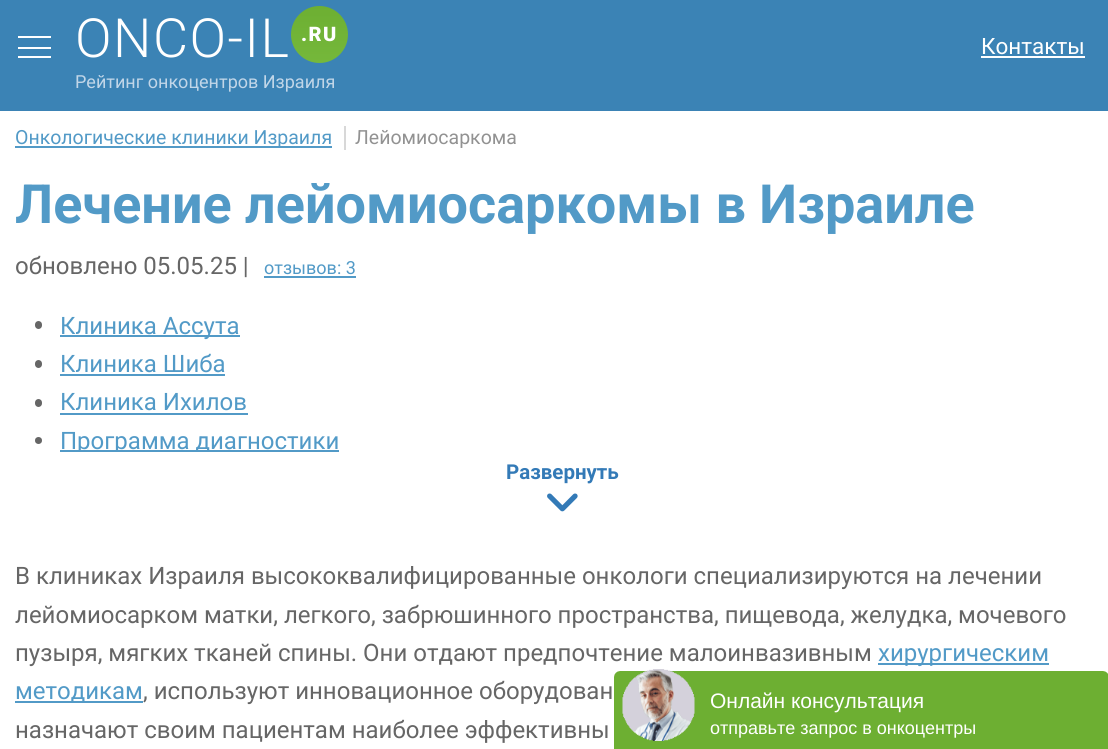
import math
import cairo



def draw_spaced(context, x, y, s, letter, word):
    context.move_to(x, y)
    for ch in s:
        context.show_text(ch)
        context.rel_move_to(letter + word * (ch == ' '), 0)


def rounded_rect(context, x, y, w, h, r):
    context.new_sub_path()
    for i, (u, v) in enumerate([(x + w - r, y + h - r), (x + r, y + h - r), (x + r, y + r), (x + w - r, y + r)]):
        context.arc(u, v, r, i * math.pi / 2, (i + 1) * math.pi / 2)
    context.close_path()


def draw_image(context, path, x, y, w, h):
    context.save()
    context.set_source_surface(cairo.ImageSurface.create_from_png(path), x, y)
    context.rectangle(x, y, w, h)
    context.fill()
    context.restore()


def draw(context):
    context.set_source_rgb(1, 1, 1)
    context.paint()
    context.set_source_rgb(59 / 255, 131 / 255, 181 / 255)
    context.rectangle(0, 0, 1108, 111)
    context.fill()
    context.set_source_rgb(1, 1, 1)
    context.rectangle(18, 36, 33, 2)
    context.fill()
    context.rectangle(18, 47, 33, 2)
    context.fill()
    context.rectangle(18, 56, 33, 2)
    context.fill()
    gradient = cairo.LinearGradient(320, 6, 320, 63)
    gradient.add_color_stop_rgba(0, 109 / 255, 175 / 255, 50 / 255, 1)
    gradient.add_color_stop_rgba(1, 117 / 255, 184 / 255, 59 / 255, 1)
    context.set_source(gradient)
    context.arc(319.5, 34.5, 28.5, 0, 2 * math.pi)
    context.fill()
    context.set_source_rgb(1, 1, 1)
    context.rectangle(981, 56, 104, 2)
    context.fill()
    context.set_source_rgb(82 / 255, 154 / 255, 199 / 255)
    context.rectangle(15, 146, 317, 2)
    context.fill()
    context.set_source_rgb(216 / 255, 216 / 255, 216 / 255)
    context.rectangle(344, 126, 2, 24)
    context.fill()
    context.set_source_rgb(82 / 255, 154 / 255, 199 / 255)
    context.rectangle(264, 276, 92, 2)
    context.fill()
    context.set_source_rgb(102 / 255, 102 / 255, 102 / 255)
    rounded_rect(context, 35, 321, 7, 8, 3.5)
    context.fill()
    context.set_source_rgb(82 / 255, 154 / 255, 199 / 255)
    context.rectangle(60, 335, 180, 2)
    context.fill()
    context.set_source_rgb(102 / 255, 102 / 255, 102 / 255)
    rounded_rect(context, 35, 360, 7, 8, 3.5)
    context.fill()
    context.set_source_rgb(82 / 255, 154 / 255, 199 / 255)
    context.rectangle(60, 374, 165, 2)
    context.fill()
    context.set_source_rgb(102 / 255, 102 / 255, 102 / 255)
    rounded_rect(context, 35, 399, 7, 8, 3.5)
    context.fill()
    context.set_source_rgb(82 / 255, 154 / 255, 199 / 255)
    context.rectangle(60, 413, 188, 2)
    context.fill()
    context.set_source_rgb(102 / 255, 102 / 255, 102 / 255)
    context.arc(38.5, 440.5, 3.5, 0, 2 * math.pi)
    context.fill()
    context.set_source_rgb(82 / 255, 154 / 255, 199 / 255)
    context.rectangle(60, 450, 279, 2)
    context.fill()
    draw_image(context, "images/1.png", 547, 493, 31, 19)
    context.rectangle(878, 663, 171, 2)
    context.fill()
    context.rectangle(15, 701, 128, 2)
    context.fill()
    context.new_path()
    context.move_to(620, 674)
    context.line_to(1103, 674)
    context.curve_to(1104.5, 674, 1106, 675.5, 1106, 677)
    context.line_to(1106, 747)
    context.line_to(617, 747)
    context.line_to(617, 677)
    context.curve_to(617, 675.5, 618.5, 674, 620, 674)
    context.close_path()
    context.set_source_rgb(109 / 255, 175 / 255, 50 / 255)
    context.set_line_width(6)
    context.stroke()
    context.rectangle(620, 677, 483, 67)
    context.fill()
    draw_image(context, "images/2.png", 622, 669, 73, 72)
    context.select_font_face("Roboto Light")
    context.set_font_size(54)
    context.set_source_rgb(1, 1, 1)
    draw_spaced(context, 75, 57, "ONCO-IL", 1.5, 0)
    context.select_font_face("Roboto Black")
    context.set_font_size(20)
    draw_spaced(context, 301, 41, ".RU", 1.5, 0)
    context.select_font_face("Roboto")
    context.set_font_size(18)
    context.set_source_rgb(193 / 255, 214 / 255, 232 / 255)
    context.move_to(75, 88)
    context.show_text("Рейтинг онкоцентров Израиля")
    context.set_font_size(22.5)
    context.set_source_rgb(1, 1, 1)
    context.move_to(981, 54)
    context.show_text("Контакты")
    context.set_font_size(19.5)
    context.set_source_rgb(82 / 255, 154 / 255, 199 / 255)
    context.move_to(15, 144)
    context.show_text("Онкологические клиники Израиля")
    context.set_source_rgb(146 / 255, 146 / 255, 146 / 255)
    context.move_to(355, 144)
    context.show_text("Лейомиосаркома")
    context.select_font_face("Roboto", cairo.FontSlant.NORMAL, cairo.FontWeight.BOLD)
    context.set_font_size(54)
    context.set_source_rgb(82 / 255, 154 / 255, 199 / 255)
    context.move_to(15, 223)
    context.show_text("Лечение лейомиосаркомы в Израиле")
    context.select_font_face("Roboto")
    context.set_font_size(24)
    context.set_source_rgb(102 / 255, 102 / 255, 102 / 255)
    context.move_to(15, 274)
    context.show_text("обновлено 05.05.25 |")
    context.set_font_size(18)
    context.set_source_rgb(82 / 255, 154 / 255, 199 / 255)
    context.move_to(264, 274)
    context.show_text("отзывов: 3")
    context.set_font_size(24)
    context.move_to(60, 334)
    context.show_text("Клиника Ассута")
    context.move_to(60, 372)
    context.show_text("Клиника Шиба")
    context.move_to(60, 410)
    context.show_text("Клиника Ихилов")
    context.move_to(60, 449)
    context.show_text("Программа диагностики")
    context.set_source_rgb(1, 1, 1)
    context.rectangle(78, 452, 132, 2)
    context.fill()
    context.select_font_face("Roboto", cairo.FontSlant.NORMAL, cairo.FontWeight.BOLD)
    context.set_font_size(20.5)
    context.set_source_rgb(51 / 255, 122 / 255, 183 / 255)
    context.move_to(506, 479)
    context.show_text("Развернуть")
    context.select_font_face("Roboto")
    context.set_font_size(24)
    context.set_source_rgb(102 / 255, 102 / 255, 102 / 255)
    context.move_to(15, 584)
    context.show_text("В клиниках Израиля высококвалифицированные онкологи специализируются на лечении")
    context.move_to(15, 623)
    context.show_text("лейомиосарком матки, легкого, забрюшинного пространства, пищевода, желудка, мочевого")
    context.move_to(15, 661)
    context.show_text("пузыря, мягких тканей спины. Они отдают предпочтение малоинвазивным")
    context.set_source_rgb(82 / 255, 154 / 255, 199 / 255)
    context.move_to(878, 661)
    context.show_text("хирургическим")
    context.move_to(15, 699)
    context.show_text("методикам")
    context.set_source_rgb(102 / 255, 102 / 255, 102 / 255)
    context.move_to(143, 699)
    context.show_text(", используют инновационное оборудован")
    context.move_to(15, 738)
    context.show_text("назначают своим пациентам наиболее эффективны")
    context.select_font_face("Liberation Sans")
    context.set_font_size(21)
    context.set_source_rgb(1, 1, 1)
    context.move_to(710, 708)
    context.show_text("Онлайн консультация")
    context.set_font_size(18)
    context.move_to(710, 734)
    context.show_text("отправьте запрос в онкоцентры")


surface = cairo.ImageSurface(cairo.Format.RGB24, 1108, 749)
context = cairo.Context(surface)
options = cairo.FontOptions()
options.set_hint_metrics(cairo.HintMetrics.OFF)
options.set_hint_style(cairo.HintStyle.NONE)
context.set_font_options(options)
context.set_miter_limit(4)
draw(context)
surface.write_to_png("out.png")
